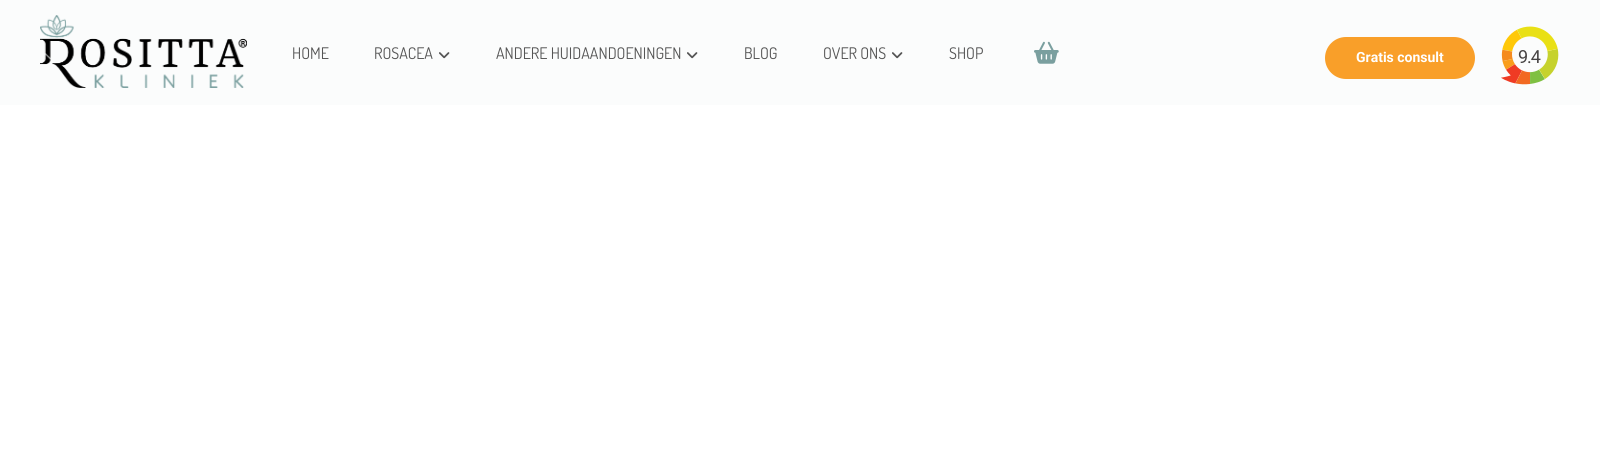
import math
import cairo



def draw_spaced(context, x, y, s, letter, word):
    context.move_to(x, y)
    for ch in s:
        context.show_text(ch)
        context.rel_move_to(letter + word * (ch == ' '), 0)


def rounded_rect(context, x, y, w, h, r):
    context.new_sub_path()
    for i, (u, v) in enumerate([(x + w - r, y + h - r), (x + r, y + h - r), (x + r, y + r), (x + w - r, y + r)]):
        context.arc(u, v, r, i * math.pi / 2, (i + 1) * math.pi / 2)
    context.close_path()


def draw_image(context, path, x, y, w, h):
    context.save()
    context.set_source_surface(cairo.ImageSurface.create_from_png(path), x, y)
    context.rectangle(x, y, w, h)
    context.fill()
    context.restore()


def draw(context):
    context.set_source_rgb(1, 1, 1)
    context.paint()
    context.set_source_rgb(251 / 255, 252 / 255, 252 / 255)
    context.rectangle(0, 0, 1600, 105)
    context.fill()
    draw_image(context, "images/1.png", 40, 15, 207, 73)
    draw_image(context, "images/2.png", 439, 52, 11, 7)
    draw_image(context, "images/2.png", 687, 52, 11, 7)
    draw_image(context, "images/2.png", 892, 52, 11, 7)
    draw_image(context, "images/3.png", 1034, 41, 25, 23)
    context.set_source_rgb(249 / 255, 159 / 255, 41 / 255)
    rounded_rect(context, 1325, 37, 150, 42, 21)
    context.fill()
    draw_image(context, "images/4.png", 1501, 26, 58, 59)
    context.select_font_face("Dosis")
    context.set_font_size(16)
    context.set_source_rgb(85 / 255, 85 / 255, 85 / 255)
    context.move_to(292, 59)
    context.show_text("HOME")
    context.move_to(374, 59)
    context.show_text("ROSACEA")
    context.move_to(496, 59)
    context.show_text("ANDERE HUIDAANDOENINGEN")
    context.move_to(744, 59)
    context.show_text("BLOG")
    context.move_to(823, 59)
    context.show_text("OVER ONS")
    context.move_to(949, 59)
    context.show_text("SHOP")
    context.select_font_face("Roboto", cairo.FontSlant.NORMAL, cairo.FontWeight.BOLD)
    context.set_font_size(14)
    context.set_source_rgb(1, 1, 1)
    context.move_to(1356, 62)
    context.show_text("Gratis consult")
    context.select_font_face("Roboto")
    context.set_font_size(18)
    context.set_source_rgb(70 / 255, 67 / 255, 67 / 255)
    draw_spaced(context, 1518, 63, "9.4", -1, 0)


surface = cairo.ImageSurface(cairo.Format.RGB24, 1600, 468)
context = cairo.Context(surface)
options = cairo.FontOptions()
options.set_hint_metrics(cairo.HintMetrics.OFF)
options.set_hint_style(cairo.HintStyle.NONE)
context.set_font_options(options)
context.set_miter_limit(4)
draw(context)
surface.write_to_png("out.png")
